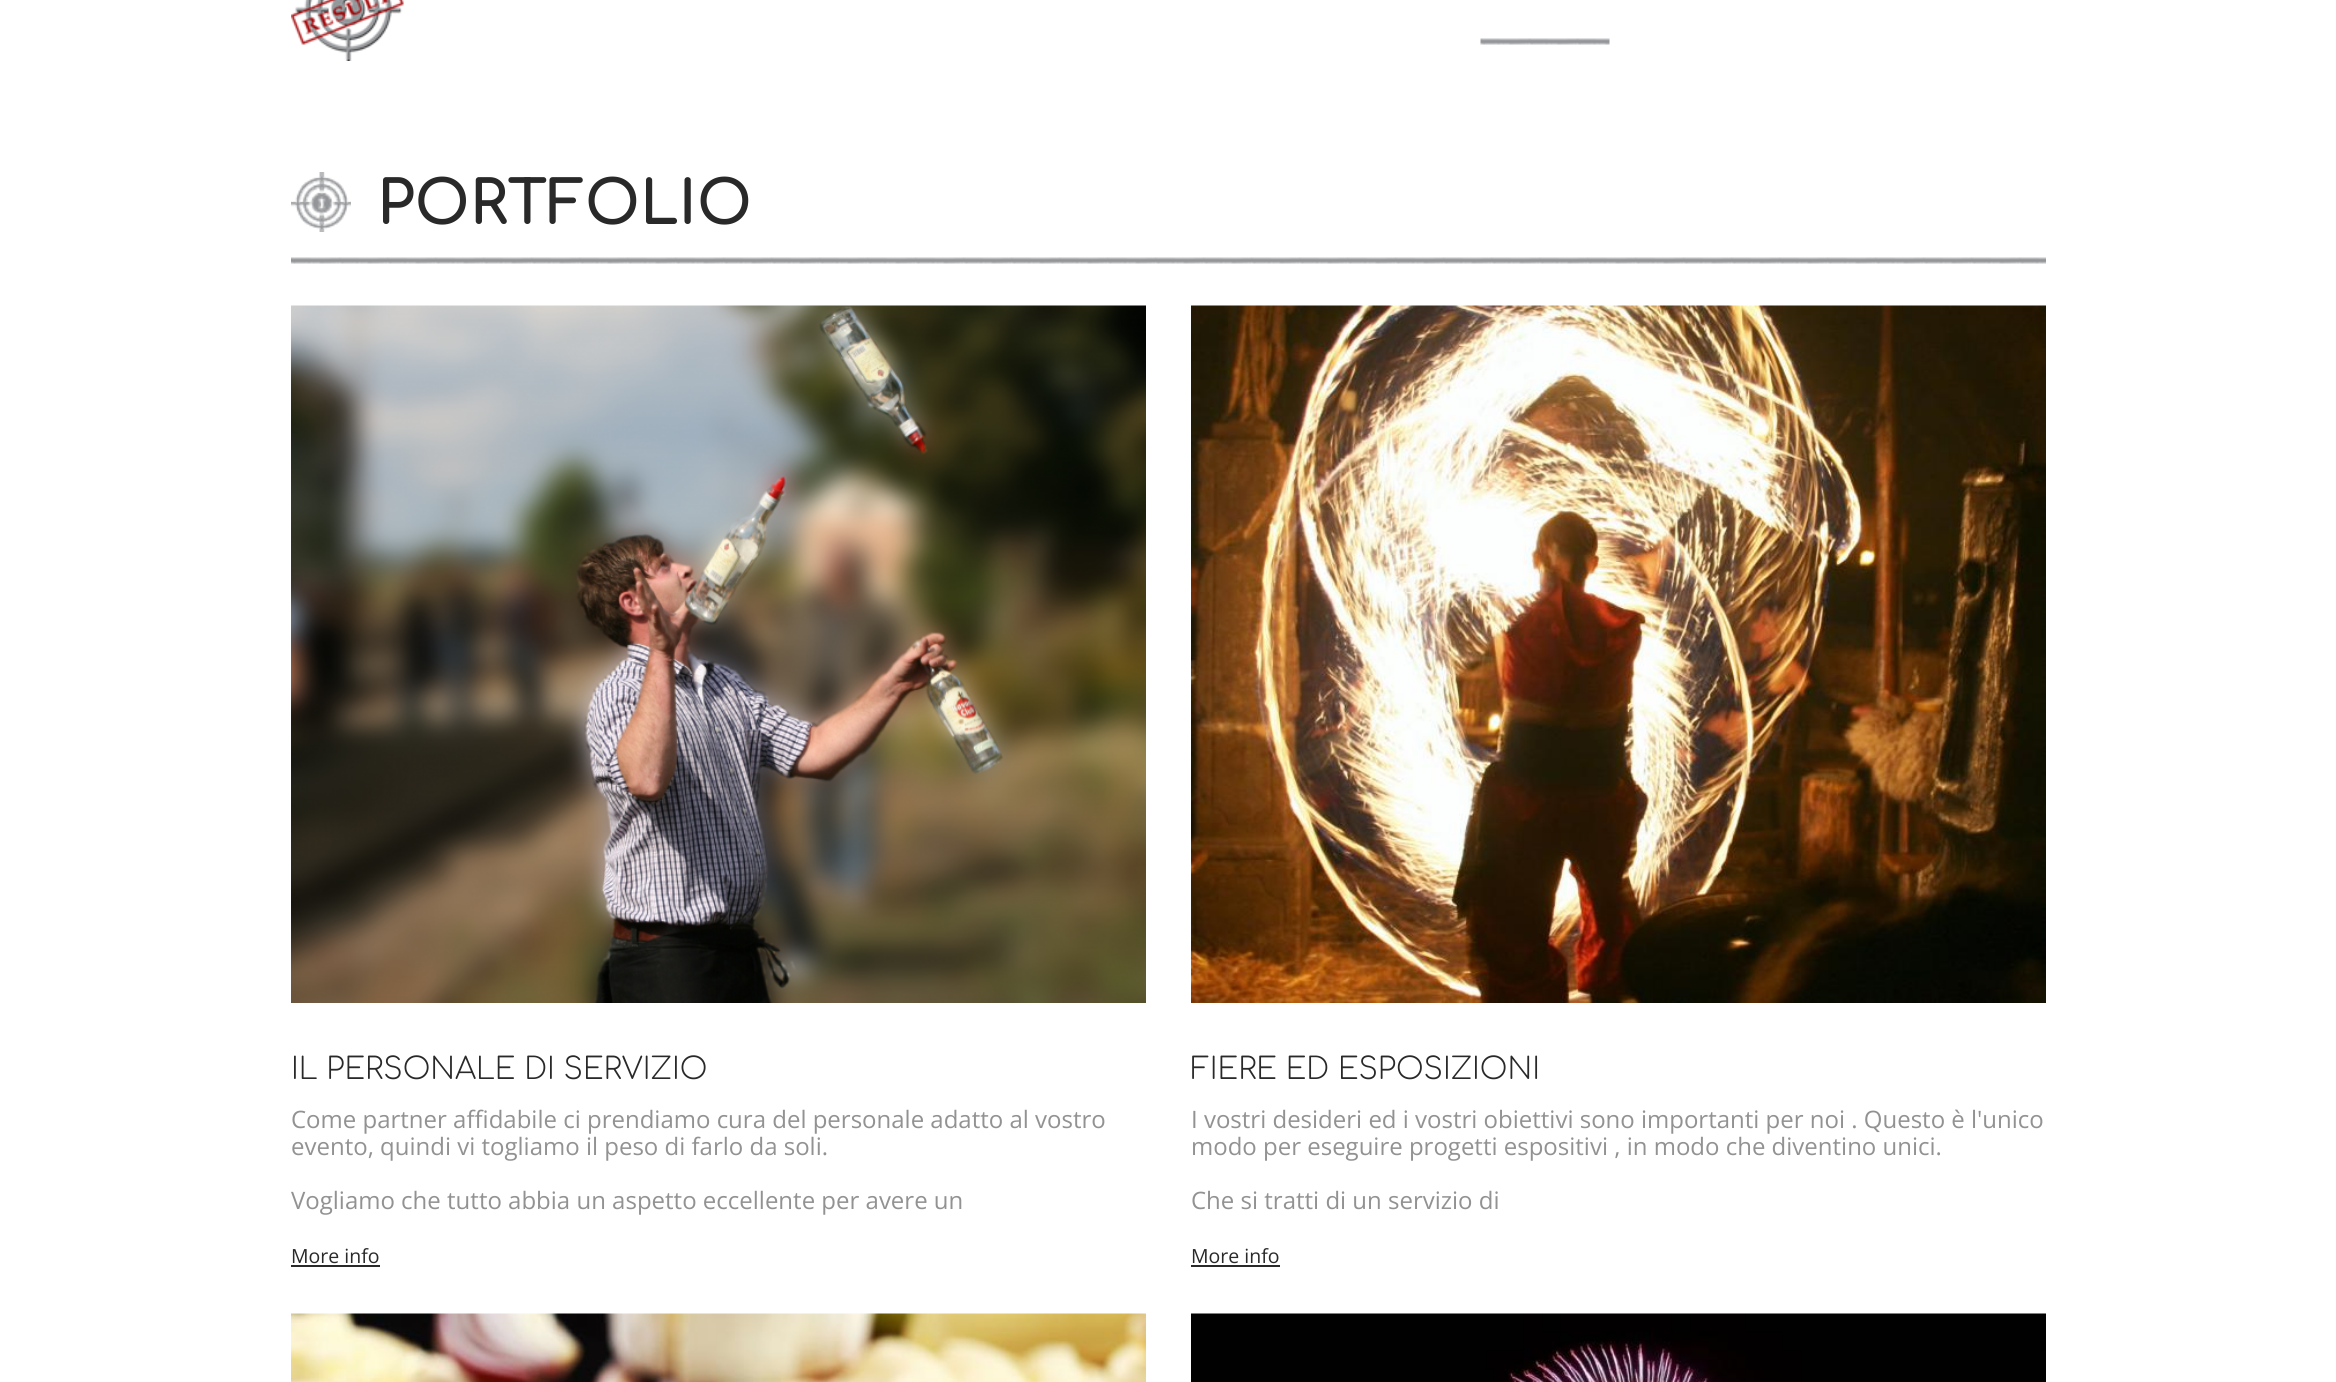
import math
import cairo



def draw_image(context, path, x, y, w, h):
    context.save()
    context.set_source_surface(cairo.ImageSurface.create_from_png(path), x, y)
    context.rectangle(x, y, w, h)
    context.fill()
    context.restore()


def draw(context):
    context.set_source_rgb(1, 1, 1)
    context.paint()
    draw_image(context, "images/1.png", 291, 0, 113, 61)
    draw_image(context, "images/2.png", 1480, 38, 130, 7)
    draw_image(context, "images/3.png", 291, 257, 1755, 7)
    draw_image(context, "images/4.png", 291, 172, 60, 60)
    draw_image(context, "images/5.png", 291, 305, 855, 698)
    context.set_source_rgb(41 / 255, 41 / 255, 41 / 255)
    context.rectangle(291, 1265, 89, 2)
    context.fill()
    draw_image(context, "images/6.png", 1191, 305, 855, 698)
    context.rectangle(1191, 1265, 89, 2)
    context.fill()
    draw_image(context, "images/7.png", 291, 1313, 855, 69)
    draw_image(context, "images/8.png", 1191, 1313, 855, 69)
    context.select_font_face("Comfortaa", cairo.FontSlant.NORMAL, cairo.FontWeight.BOLD)
    context.set_font_size(60)
    context.move_to(377, 224)
    context.show_text("PORTFOLIO")
    context.select_font_face("Comfortaa Light")
    context.set_font_size(30)
    context.move_to(291, 1079)
    context.show_text("IL PERSONALE DI SERVIZIO")
    context.select_font_face("Open Sans")
    context.set_font_size(24)
    context.set_source_rgb(146 / 255, 146 / 255, 146 / 255)
    context.move_to(291, 1128)
    context.show_text("Come partner affidabile ci prendiamo cura del personale adatto al vostro")
    context.move_to(291, 1155)
    context.show_text("evento, quindi vi togliamo il peso di farlo da soli.")
    context.move_to(291, 1209)
    context.show_text("Vogliamo che tutto abbia un aspetto eccellente per avere un")
    context.set_font_size(19.5)
    context.set_source_rgb(41 / 255, 41 / 255, 41 / 255)
    context.move_to(291, 1263)
    context.show_text("More info")
    context.select_font_face("Comfortaa Light")
    context.set_font_size(30)
    context.move_to(1191, 1079)
    context.show_text("FIERE ED ESPOSIZIONI")
    context.select_font_face("Open Sans")
    context.set_font_size(24)
    context.set_source_rgb(146 / 255, 146 / 255, 146 / 255)
    context.move_to(1191, 1128)
    context.show_text("I vostri desideri ed i vostri obiettivi sono importanti per noi . Questo è l'unico")
    context.move_to(1191, 1155)
    context.show_text("modo per eseguire progetti espositivi , in modo che diventino unici.")
    context.move_to(1191, 1209)
    context.show_text("Che si tratti di un servizio di")
    context.set_font_size(19.5)
    context.set_source_rgb(41 / 255, 41 / 255, 41 / 255)
    context.move_to(1191, 1263)
    context.show_text("More info")


surface = cairo.ImageSurface(cairo.Format.RGB24, 2336, 1382)
context = cairo.Context(surface)
options = cairo.FontOptions()
options.set_hint_metrics(cairo.HintMetrics.OFF)
options.set_hint_style(cairo.HintStyle.NONE)
context.set_font_options(options)
context.set_miter_limit(4)
draw(context)
surface.write_to_png("out.png")
